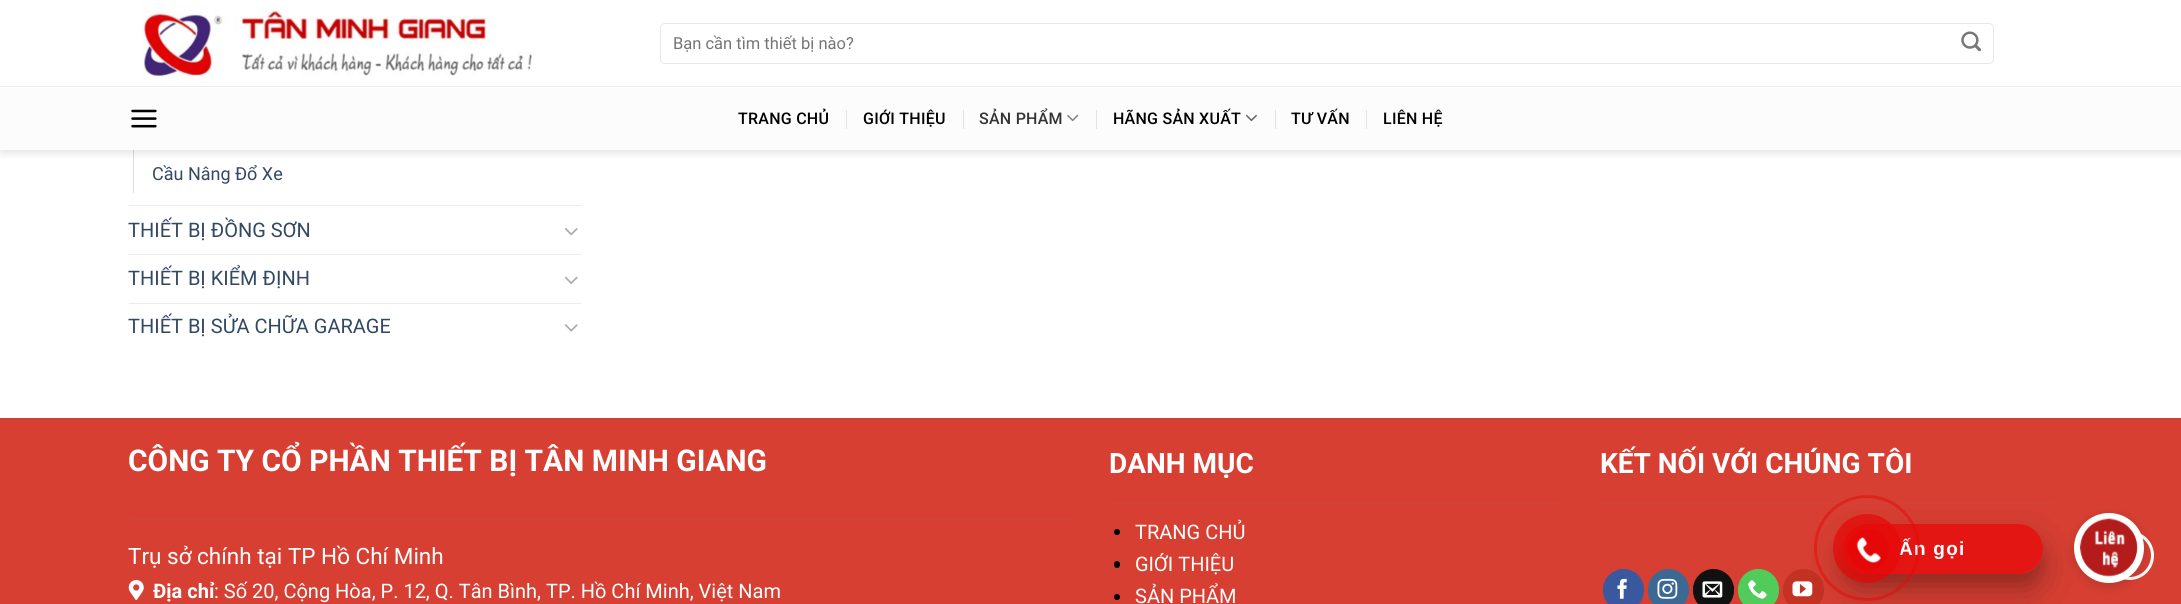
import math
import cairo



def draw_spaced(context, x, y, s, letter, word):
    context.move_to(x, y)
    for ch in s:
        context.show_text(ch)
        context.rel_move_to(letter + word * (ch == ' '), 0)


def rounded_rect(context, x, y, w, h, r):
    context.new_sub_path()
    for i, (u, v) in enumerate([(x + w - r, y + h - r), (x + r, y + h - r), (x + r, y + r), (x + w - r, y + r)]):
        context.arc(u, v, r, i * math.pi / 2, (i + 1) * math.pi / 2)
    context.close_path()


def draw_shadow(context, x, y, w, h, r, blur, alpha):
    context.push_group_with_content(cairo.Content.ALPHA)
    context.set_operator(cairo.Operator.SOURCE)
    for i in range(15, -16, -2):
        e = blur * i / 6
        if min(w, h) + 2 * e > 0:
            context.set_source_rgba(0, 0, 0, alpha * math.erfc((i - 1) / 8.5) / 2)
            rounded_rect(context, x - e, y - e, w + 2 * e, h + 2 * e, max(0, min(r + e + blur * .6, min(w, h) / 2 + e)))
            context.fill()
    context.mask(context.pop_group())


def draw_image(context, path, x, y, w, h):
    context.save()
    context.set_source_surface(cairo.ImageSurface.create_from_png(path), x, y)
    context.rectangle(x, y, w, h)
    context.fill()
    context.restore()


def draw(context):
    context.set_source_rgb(1, 1, 1)
    context.paint()
    context.set_source_rgb(221 / 255, 221 / 255, 221 / 255)
    context.rectangle(133, 150, 1, 43)
    context.fill()
    context.save()
    context.rectangle(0, 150, 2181, 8)
    context.clip()
    context.set_source_rgb(0, 0, 0)
    draw_shadow(context, 1, 1, 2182, 150, 0, 6, 0.15)
    context.restore()
    context.set_source_rgb(233 / 255, 235 / 255, 239 / 255)
    context.rectangle(0, 86, 2181, 1)
    context.fill()
    draw_image(context, "images/1.png", 142, 4, 390, 79)
    rounded_rect(context, 660.5, 23.5, 1333, 40, 4.5)
    context.set_source_rgb(232 / 255, 232 / 255, 232 / 255)
    context.set_line_width(1)
    context.stroke()
    draw_image(context, "images/2.png", 1961, 31, 20, 21)
    context.set_source_rgb(252 / 255, 252 / 255, 252 / 255)
    context.rectangle(0, 88, 2181, 62)
    context.fill()
    draw_image(context, "images/3.png", 131, 109, 26, 19)
    context.set_source_rgb(227 / 255, 227 / 255, 227 / 255)
    context.rectangle(846, 110, 1, 19)
    context.fill()
    context.rectangle(963, 110, 1, 19)
    context.fill()
    draw_image(context, "images/4.png", 1067, 114, 12, 8)
    context.rectangle(1096, 110, 1, 19)
    context.fill()
    draw_image(context, "images/5.png", 1245, 114, 12, 8)
    context.rectangle(1275, 110, 1, 19)
    context.fill()
    context.rectangle(1366, 110, 1, 19)
    context.fill()
    context.set_source_rgb(236 / 255, 236 / 255, 236 / 255)
    context.rectangle(129, 205, 452, 1)
    context.fill()
    draw_image(context, "images/6.png", 564, 228, 14, 8)
    context.rectangle(129, 254, 452, 1)
    context.fill()
    draw_image(context, "images/7.png", 564, 276, 14, 9)
    context.rectangle(129, 303, 452, 1)
    context.fill()
    draw_image(context, "images/8.png", 564, 324, 14, 8)
    context.set_source_rgb(215 / 255, 63 / 255, 50 / 255)
    context.rectangle(0, 418, 2181, 186)
    context.fill()
    context.set_source_rgb(206 / 255, 70 / 255, 58 / 255)
    context.rectangle(129, 519, 944, 1)
    context.fill()
    draw_image(context, "images/9.png", 128, 580, 16, 20)
    context.rectangle(1110, 503, 453, 1)
    context.fill()
    context.set_source_rgb(0, 0, 0)
    context.arc(1117, 532, 3, 0, 2 * math.pi)
    context.fill()
    rounded_rect(context, 1114, 561, 6, 7, 3)
    context.fill()
    context.arc(1117, 597, 3, 0, 2 * math.pi)
    context.fill()
    context.set_source_rgb(206 / 255, 70 / 255, 58 / 255)
    context.rectangle(1600, 503, 454, 1)
    context.fill()
    context.set_source_rgb(58 / 255, 88 / 255, 157 / 255)
    rounded_rect(context, 1603.5, 569.5, 40, 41, 20)
    context.fill_preserve()
    context.stroke()
    draw_image(context, "images/10.png", 1617, 578, 10, 21)
    context.set_source_rgb(59 / 255, 105 / 255, 148 / 255)
    rounded_rect(context, 1648.5, 569.5, 40, 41, 20)
    context.fill_preserve()
    context.stroke()
    draw_image(context, "images/11.png", 1657, 578, 21, 21)
    context.set_source_rgb(17 / 255, 17 / 255, 17 / 255)
    rounded_rect(context, 1693.5, 569.5, 40, 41, 20)
    context.fill_preserve()
    context.stroke()
    draw_image(context, "images/12.png", 1702, 581, 21, 17)
    context.set_source_rgb(81 / 255, 203 / 255, 90 / 255)
    rounded_rect(context, 1738.5, 569.5, 40, 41, 20)
    context.fill_preserve()
    context.stroke()
    draw_image(context, "images/13.png", 1748, 580, 19, 19)
    context.set_source_rgb(195 / 255, 50 / 255, 35 / 255)
    rounded_rect(context, 1783.5, 569.5, 40, 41, 20)
    context.fill_preserve()
    context.stroke()
    draw_image(context, "images/14.png", 1792, 581, 21, 16)
    context.arc(2129.5, 555.5, 23, 0, 2 * math.pi)
    context.set_source_rgb(1, 1, 1)
    context.set_line_width(3)
    context.stroke()
    context.save()
    context.set_fill_rule(cairo.FillRule.EVEN_ODD)
    context.new_path()
    context.move_to(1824, 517)
    context.line_to(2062, 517)
    context.line_to(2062, 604)
    context.line_to(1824, 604)
    context.close_path()
    context.move_to(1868, 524)
    context.line_to(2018, 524)
    context.curve_to(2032, 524, 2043, 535, 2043, 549)
    context.curve_to(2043, 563, 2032, 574, 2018, 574)
    context.line_to(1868, 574)
    context.curve_to(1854, 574, 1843, 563, 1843, 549)
    context.curve_to(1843, 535, 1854, 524, 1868, 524)
    context.close_path()
    context.clip()
    context.set_source_rgb(0, 0, 0)
    draw_shadow(context, 1843, 536, 200, 50, 25, 6, 0.1)
    context.restore()
    context.save()
    context.set_fill_rule(cairo.FillRule.EVEN_ODD)
    context.new_path()
    context.move_to(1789, 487)
    context.line_to(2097, 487)
    context.line_to(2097, 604)
    context.line_to(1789, 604)
    context.close_path()
    context.move_to(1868, 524)
    context.line_to(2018, 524)
    context.curve_to(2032, 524, 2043, 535, 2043, 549)
    context.curve_to(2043, 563, 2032, 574, 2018, 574)
    context.line_to(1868, 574)
    context.curve_to(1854, 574, 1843, 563, 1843, 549)
    context.curve_to(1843, 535, 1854, 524, 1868, 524)
    context.close_path()
    context.clip()
    context.set_source_rgb(0, 0, 0)
    draw_shadow(context, 1843, 541, 200, 50, 25, 17.5, 0.25)
    context.restore()
    context.set_source_rgba(230 / 255, 8 / 255, 8 / 255, 0.75)
    rounded_rect(context, 1843, 524, 200, 50, 25)
    context.fill()
    context.set_source_rgb(0, 0, 0)
    draw_shadow(context, 2074, 516, 70, 70, 35, 6, 0.08)
    draw_shadow(context, 2074, 516, 70, 70, 35, 6, 0.08)
    context.set_source_rgb(1, 1, 1)
    context.arc(2109, 548, 32, 0, 2 * math.pi)
    context.fill_preserve()
    context.set_line_width(6)
    context.stroke()
    draw_image(context, "images/16.png", 2080, 518, 58, 59)
    context.select_font_face("Roboto")
    context.set_font_size(16.5)
    context.set_source_rgb(117 / 255, 117 / 255, 117 / 255)
    context.move_to(673, 49)
    context.show_text("Bạn cần tìm thiết bị nào?")
    context.select_font_face("Roboto Medium")
    context.set_font_size(16)
    context.set_source_rgb(0, 0, 0)
    draw_spaced(context, 738, 124, "TRANG CHỦ", 0.25, 0)
    draw_spaced(context, 863, 124, "GIỚI THIỆU", 0.25, 0)
    context.set_source_rgb(52 / 255, 52 / 255, 52 / 255)
    draw_spaced(context, 979, 124, "SẢN PHẨM", 0.25, 0)
    context.set_source_rgb(0, 0, 0)
    draw_spaced(context, 1113, 124, "HÃNG SẢN XUẤT", 0.25, 0)
    draw_spaced(context, 1291, 124, "TƯ VẤN", 0.25, 0)
    draw_spaced(context, 1383, 124, "LIÊN HỆ", 0.25, 0)
    context.select_font_face("Roboto")
    context.set_font_size(18)
    context.set_source_rgb(51 / 255, 72 / 255, 98 / 255)
    context.move_to(152, 180)
    context.show_text("Cầu Nâng Đổ Xe")
    context.set_font_size(20)
    context.move_to(128, 237)
    context.show_text("THIẾT BỊ ĐỒNG SƠN")
    context.move_to(128, 285)
    context.show_text("THIẾT BỊ KIỂM ĐỊNH")
    context.move_to(128, 333)
    context.show_text("THIẾT BỊ SỬA CHỮA GARAGE")
    context.select_font_face("Roboto", cairo.FontSlant.NORMAL, cairo.FontWeight.BOLD)
    context.set_font_size(29.9)
    context.set_source_rgb(1, 1, 1)
    context.move_to(128, 471)
    context.show_text("CÔNG TY CỔ PHẦN THIẾT BỊ TÂN MINH GIANG")
    context.select_font_face("Roboto")
    context.set_font_size(22.5)
    context.move_to(128, 564)
    context.show_text("Trụ sở chính tại TP Hồ Chí Minh")
    context.select_font_face("Roboto", cairo.FontSlant.NORMAL, cairo.FontWeight.BOLD)
    context.set_font_size(20)
    context.move_to(153, 598)
    context.show_text("Địa chỉ")
    context.select_font_face("Roboto")
    context.move_to(214, 598)
    context.show_text(": Số 20, Cộng Hòa, P. 12, Q. Tân Bình, TP. Hồ Chí Minh, Việt Nam")
    context.select_font_face("Roboto", cairo.FontSlant.NORMAL, cairo.FontWeight.BOLD)
    context.set_font_size(28)
    context.move_to(1109, 473)
    context.show_text("DANH MỤC")
    context.select_font_face("Roboto")
    context.set_font_size(20)
    context.move_to(1135, 539)
    context.show_text("TRANG CHỦ")
    context.move_to(1135, 571)
    context.show_text("GIỚI THIỆU")
    context.move_to(1135, 603)
    context.show_text("SẢN PHẨM")
    context.select_font_face("Roboto", cairo.FontSlant.NORMAL, cairo.FontWeight.BOLD)
    context.set_font_size(28)
    context.move_to(1600, 473)
    context.show_text("KẾT NỐI VỚI CHÚNG TÔI")
    context.select_font_face("Liberation Sans", cairo.FontSlant.NORMAL, cairo.FontWeight.BOLD)
    context.set_font_size(19)
    draw_spaced(context, 1899, 555, "Ấn gọi", 1.25, 0)
    context.new_path()
    context.arc(1867, 548, 51.5, 0, 2 * math.pi)
    context.set_source_rgba(230 / 255, 8 / 255, 8 / 255, 0.5)
    context.set_line_width(3)
    context.stroke()
    context.set_source_rgba(230 / 255, 8 / 255, 8 / 255, 0.7)
    rounded_rect(context, 1833, 514, 68, 69, 34)
    context.fill()
    context.set_source_rgb(230 / 255, 8 / 255, 8 / 255)
    context.arc(1868.5, 549.5, 20.5, 0, 2 * math.pi)
    context.fill()
    draw_image(context, "images/15.png", 1856, 537, 25, 26)


surface = cairo.ImageSurface(cairo.Format.RGB24, 2181, 604)
context = cairo.Context(surface)
options = cairo.FontOptions()
options.set_hint_metrics(cairo.HintMetrics.OFF)
options.set_hint_style(cairo.HintStyle.NONE)
context.set_font_options(options)
context.set_miter_limit(4)
draw(context)
surface.write_to_png("out.png")
